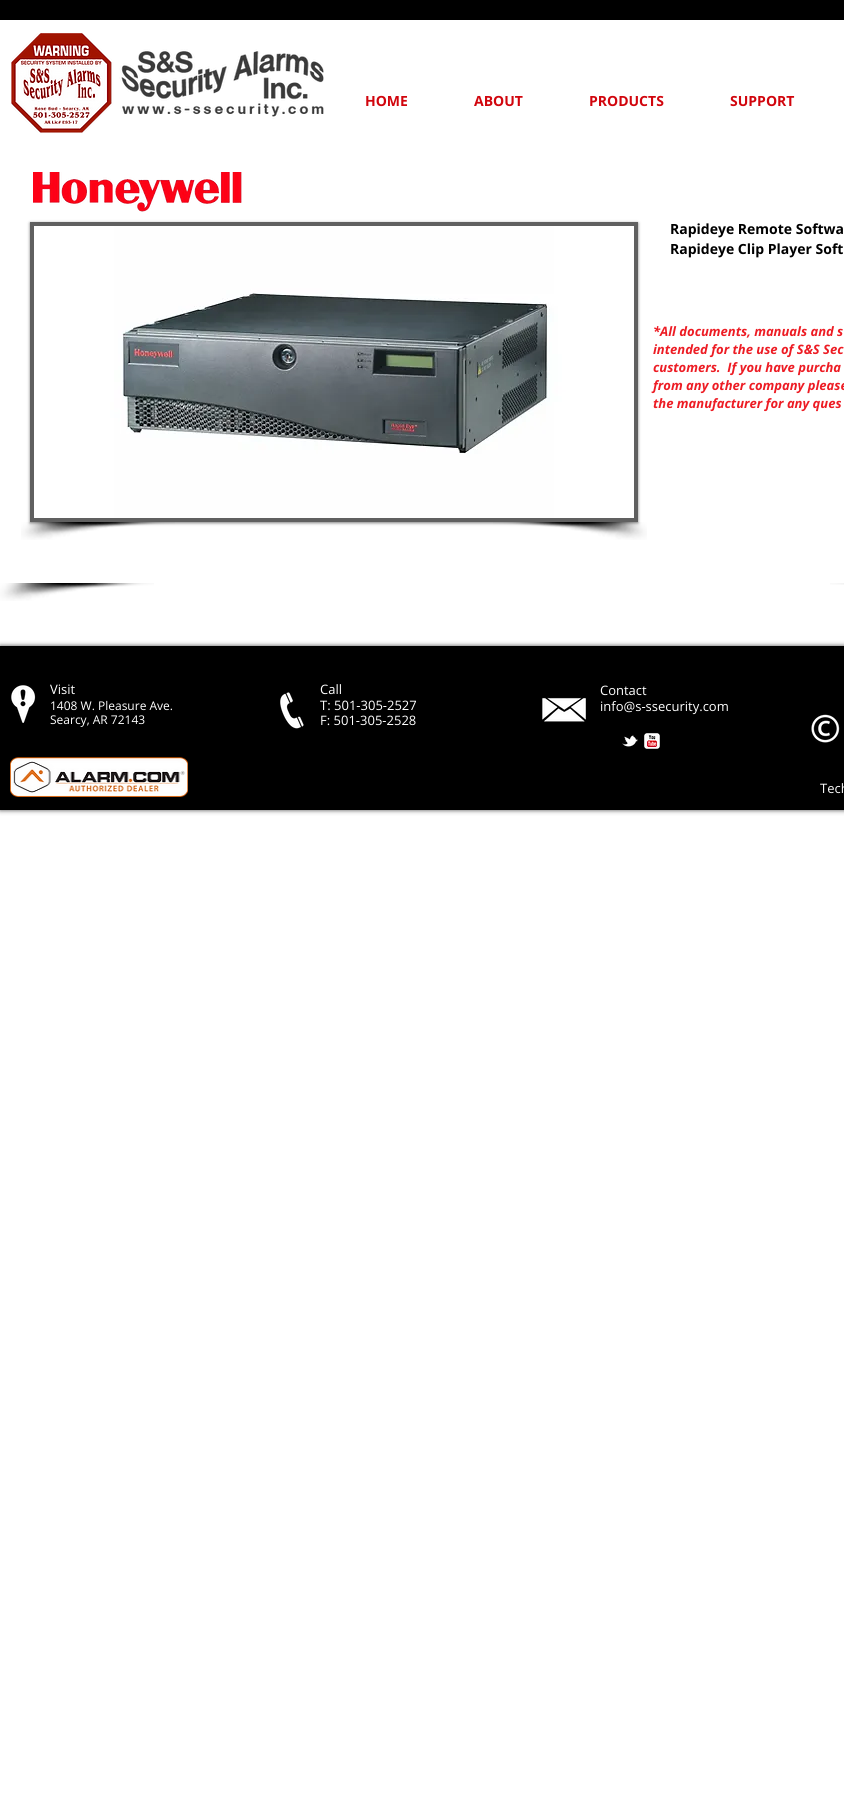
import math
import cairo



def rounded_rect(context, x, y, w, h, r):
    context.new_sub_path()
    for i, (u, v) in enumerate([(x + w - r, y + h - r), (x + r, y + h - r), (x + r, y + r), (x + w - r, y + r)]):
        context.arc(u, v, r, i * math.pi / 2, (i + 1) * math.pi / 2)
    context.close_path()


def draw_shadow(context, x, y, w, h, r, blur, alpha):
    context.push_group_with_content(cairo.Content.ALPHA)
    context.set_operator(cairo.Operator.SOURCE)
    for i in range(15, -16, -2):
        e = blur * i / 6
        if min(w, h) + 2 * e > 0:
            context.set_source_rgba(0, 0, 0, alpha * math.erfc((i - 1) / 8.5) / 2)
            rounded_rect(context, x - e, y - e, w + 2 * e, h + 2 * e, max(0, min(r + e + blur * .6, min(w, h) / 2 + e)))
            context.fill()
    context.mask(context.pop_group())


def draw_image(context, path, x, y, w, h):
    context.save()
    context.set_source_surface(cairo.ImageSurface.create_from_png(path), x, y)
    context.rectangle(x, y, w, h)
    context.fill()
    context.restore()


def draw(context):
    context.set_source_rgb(1, 1, 1)
    context.paint()
    context.set_source_rgb(0, 0, 0)
    context.rectangle(0, 0, 844, 20)
    context.fill()
    draw_image(context, "images/1.png", 11, 33, 313, 100)
    draw_image(context, "images/2.png", 33, 172, 209, 40)
    context.set_source_rgb(0, 0, 0)
    draw_shadow(context, 30, 223, 608, 300, 0, 1.5, 0.5)
    context.set_source_rgb(96 / 255, 96 / 255, 96 / 255)
    context.rectangle(30, 222, 608, 300)
    context.fill()
    draw_image(context, "images/3.png", 34, 226, 600, 292)
    draw_image(context, "images/4.png", 21, 522, 154, 18)
    draw_image(context, "images/5.png", 493, 522, 154, 18)
    draw_image(context, "images/6.png", 0, 583, 154, 18)
    draw_image(context, "images/7.png", 830, 583, 14, 2)
    context.set_source_rgb(0, 0, 0)
    draw_shadow(context, 0, 646, 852, 164, 0, 2.5, 0.7)
    context.set_source_rgb(0, 0, 0)
    context.rectangle(0, 646, 844, 164)
    context.fill()
    draw_image(context, "images/8.png", 11, 685, 25, 38)
    draw_image(context, "images/9.png", 280, 692, 24, 37)
    draw_image(context, "images/10.png", 542, 697, 44, 25)
    draw_image(context, "images/11.png", 622, 735, 16, 12)
    draw_image(context, "images/12.png", 644, 733, 16, 16)
    draw_image(context, "images/13.png", 811, 714, 29, 29)
    draw_image(context, "images/14.png", 10, 757, 178, 40)
    context.select_font_face("Open Sans", cairo.FontSlant.NORMAL, cairo.FontWeight.BOLD)
    context.set_font_size(14)
    context.set_source_rgb(209 / 255, 5 / 255, 13 / 255)
    context.move_to(365, 106)
    context.show_text("HOME")
    context.move_to(474, 106)
    context.show_text("ABOUT")
    context.move_to(589, 106)
    context.show_text("PRODUCTS")
    context.move_to(730, 106)
    context.show_text("SUPPORT")
    context.set_source_rgb(0, 0, 0)
    context.move_to(670, 234)
    context.show_text("Rapideye Remote Softwa")
    context.move_to(670, 254)
    context.show_text("Rapideye Clip Player Soft")
    context.select_font_face("Open Sans", cairo.FontSlant.ITALIC, cairo.FontWeight.BOLD)
    context.set_font_size(13)
    context.set_source_rgb(237 / 255, 28 / 255, 36 / 255)
    context.move_to(653, 336)
    context.show_text("*All documents, manuals and s")
    context.move_to(653, 354)
    context.show_text("intended for the use of S&S Sec")
    context.move_to(653, 372)
    context.show_text("customers.  If you have purcha")
    context.move_to(653, 390)
    context.show_text("from any other company please")
    context.move_to(653, 408)
    context.show_text("the manufacturer for any ques")
    context.select_font_face("Open Sans")
    context.set_source_rgb(1, 1, 1)
    context.move_to(50, 694)
    context.show_text("Visit")
    context.set_font_size(12)
    context.move_to(50, 710)
    context.show_text("1408 W. Pleasure Ave.")
    context.move_to(50, 724)
    context.show_text("Searcy, AR 72143")
    context.set_font_size(13)
    context.move_to(320, 694)
    context.show_text("Call")
    context.move_to(320, 710)
    context.show_text("T: 501-305-2527")
    context.move_to(320, 725)
    context.show_text("F: 501-305-2528")
    context.move_to(600, 695)
    context.show_text("Contact")
    context.move_to(600, 711)
    context.show_text("info@s-ssecurity.com")
    context.move_to(820, 793)
    context.show_text("Tech")


surface = cairo.ImageSurface(cairo.Format.RGB24, 844, 1808)
context = cairo.Context(surface)
options = cairo.FontOptions()
options.set_hint_metrics(cairo.HintMetrics.OFF)
options.set_hint_style(cairo.HintStyle.NONE)
context.set_font_options(options)
context.set_miter_limit(4)
draw(context)
surface.write_to_png("out.png")
